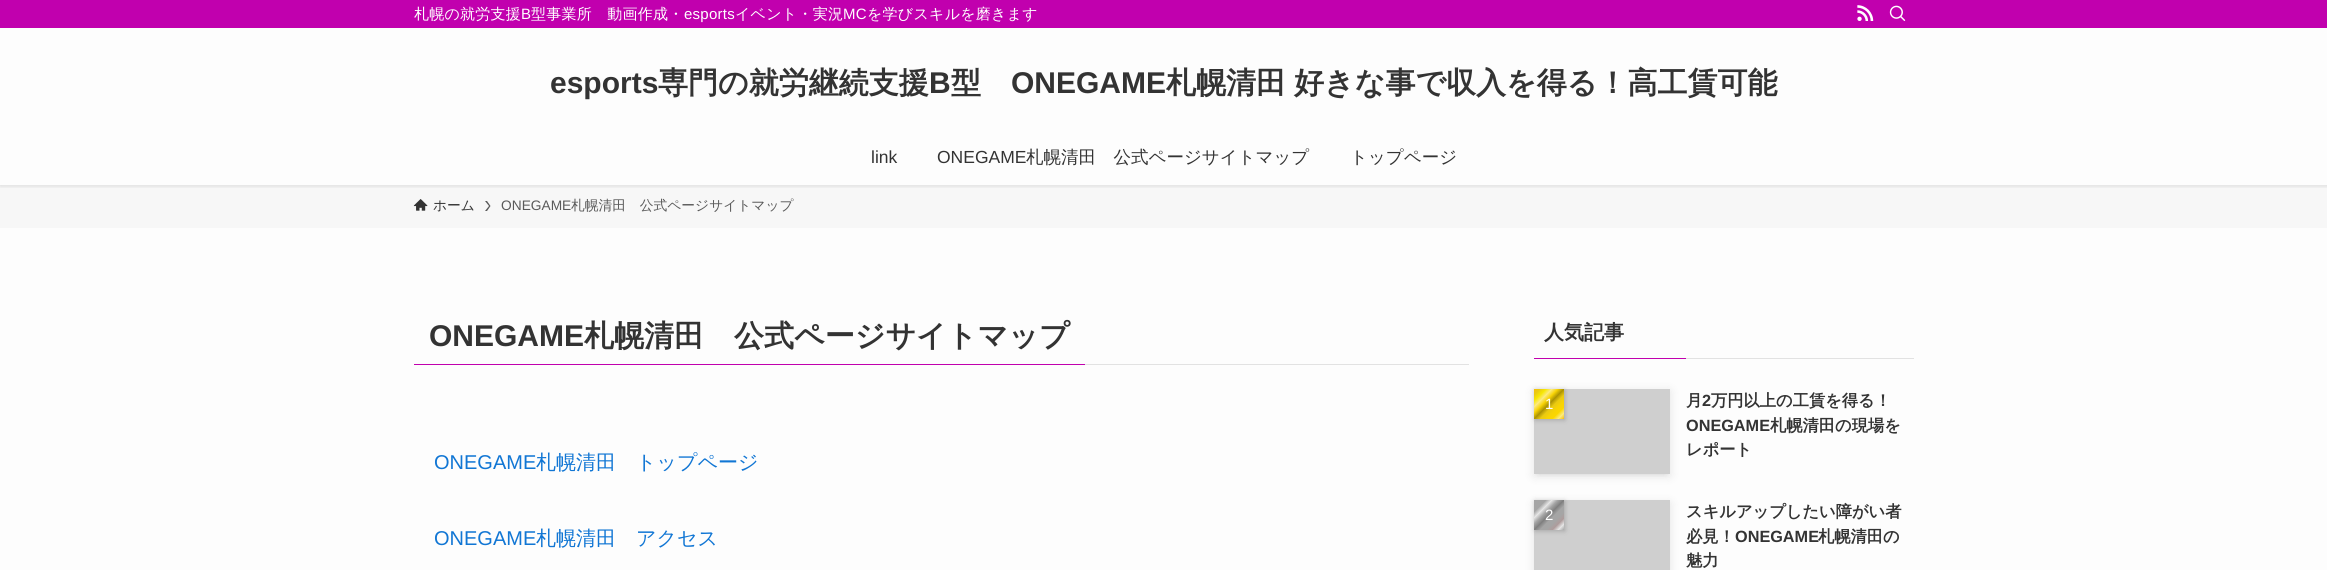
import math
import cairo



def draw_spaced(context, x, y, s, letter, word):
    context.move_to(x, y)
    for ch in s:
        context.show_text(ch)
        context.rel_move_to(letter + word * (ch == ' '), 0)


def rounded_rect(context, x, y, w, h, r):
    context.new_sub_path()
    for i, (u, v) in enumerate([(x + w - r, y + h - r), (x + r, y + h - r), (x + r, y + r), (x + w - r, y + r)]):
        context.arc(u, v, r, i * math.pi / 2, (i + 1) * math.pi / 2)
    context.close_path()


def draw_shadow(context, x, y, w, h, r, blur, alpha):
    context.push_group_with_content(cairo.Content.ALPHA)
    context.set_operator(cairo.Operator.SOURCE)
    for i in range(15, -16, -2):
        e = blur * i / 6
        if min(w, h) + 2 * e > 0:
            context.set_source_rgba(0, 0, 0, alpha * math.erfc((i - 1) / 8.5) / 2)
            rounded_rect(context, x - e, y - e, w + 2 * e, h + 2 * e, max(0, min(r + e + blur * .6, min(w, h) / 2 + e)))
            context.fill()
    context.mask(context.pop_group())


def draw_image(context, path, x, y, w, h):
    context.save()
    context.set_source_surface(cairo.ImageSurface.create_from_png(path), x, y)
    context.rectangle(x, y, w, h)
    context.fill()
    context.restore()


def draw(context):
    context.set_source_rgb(253 / 255, 253 / 255, 253 / 255)
    context.paint()
    context.set_source_rgb(247 / 255, 247 / 255, 247 / 255)
    context.rectangle(0, 185, 2327, 43)
    context.fill()
    context.save()
    context.rectangle(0, 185, 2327, 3)
    context.clip()
    context.set_source_rgb(0, 0, 0)
    draw_shadow(context, 0, 1, 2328, 185, 0, 2.5, 0.12)
    context.restore()
    context.set_source_rgb(193 / 255, 0, 174 / 255)
    context.rectangle(0, 0, 2327, 28)
    context.fill()
    draw_image(context, "images/1.png", 1857, 5, 17, 16)
    draw_image(context, "images/2.png", 1889, 5, 17, 16)
    draw_image(context, "images/3.png", 413, 199, 15, 12)
    context.set_source_rgb(90 / 255, 90 / 255, 90 / 255)
    context.new_path()
    context.move_to(487, 201)
    context.line_to(485, 201)
    context.line_to(489, 206)
    context.line_to(485, 211)
    context.line_to(487, 211)
    context.line_to(490.5, 206)
    context.close_path()
    context.fill()
    context.set_source_rgb(226 / 255, 226 / 255, 226 / 255)
    context.rectangle(1085, 364, 384, 1)
    context.fill()
    context.set_source_rgb(193 / 255, 0, 174 / 255)
    context.rectangle(414, 364, 671, 1)
    context.fill()
    context.rectangle(1534, 358, 152, 1)
    context.fill()
    context.set_source_rgb(226 / 255, 226 / 255, 226 / 255)
    context.rectangle(1686, 358, 228, 1)
    context.fill()
    context.set_source_rgb(0, 0, 0)
    draw_shadow(context, 1539, 399, 126, 75, 0, 2.5, 0.1)
    draw_shadow(context, 1534, 391, 136, 85, 0, 5, 0.1)
    context.set_source_rgb(207 / 255, 207 / 255, 207 / 255)
    context.rectangle(1534, 389, 136, 85)
    context.fill()
    context.set_source_rgb(0, 0, 0)
    draw_shadow(context, 1535, 390, 30, 30, 0, 2.5, 0.2)
    gradient = cairo.LinearGradient(1564, 419, 1534, 389)
    gradient.add_color_stop_rgba(0, 247 / 255, 191 / 255, 5 / 255, 1)
    gradient.add_color_stop_rgba(0.1, 252 / 255, 234 / 255, 127 / 255, 1)
    gradient.add_color_stop_rgba(0.2, 252 / 255, 215 / 255, 0, 1)
    gradient.add_color_stop_rgba(0.3, 247 / 255, 211 / 255, 5 / 255, 1)
    gradient.add_color_stop_rgba(0.4, 234 / 255, 202 / 255, 18 / 255, 1)
    gradient.add_color_stop_rgba(0.5, 172 / 255, 147 / 255, 3 / 255, 1)
    gradient.add_color_stop_rgba(0.6, 247 / 255, 211 / 255, 5 / 255, 1)
    gradient.add_color_stop_rgba(0.7, 252 / 255, 234 / 255, 127 / 255, 1)
    gradient.add_color_stop_rgba(0.8, 247 / 255, 231 / 255, 5 / 255, 1)
    gradient.add_color_stop_rgba(0.9, 234 / 255, 202 / 255, 18 / 255, 1)
    gradient.add_color_stop_rgba(1, 247 / 255, 191 / 255, 5 / 255, 1)
    context.set_source(gradient)
    context.rectangle(1534, 389, 30, 30)
    context.fill()
    context.set_source_rgb(0, 0, 0)
    draw_shadow(context, 1534, 503, 136, 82, 0, 5, 0.1)
    context.set_source_rgb(207 / 255, 207 / 255, 207 / 255)
    context.rectangle(1534, 500, 136, 70)
    context.fill()
    context.set_source_rgb(0, 0, 0)
    draw_shadow(context, 1535, 501, 30, 30, 0, 2.5, 0.2)
    gradient = cairo.LinearGradient(1564, 530, 1534, 500)
    gradient.add_color_stop_rgba(0, 165 / 255, 165 / 255, 165 / 255, 1)
    gradient.add_color_stop_rgba(0.1, 229 / 255, 229 / 255, 229 / 255, 1)
    gradient.add_color_stop_rgba(0.2, 174 / 255, 156 / 255, 156 / 255, 1)
    gradient.add_color_stop_rgba(0.3, 165 / 255, 165 / 255, 165 / 255, 1)
    gradient.add_color_stop_rgba(0.4, 165 / 255, 165 / 255, 165 / 255, 1)
    gradient.add_color_stop_rgba(0.5, 127 / 255, 127 / 255, 127 / 255, 1)
    gradient.add_color_stop_rgba(0.6, 165 / 255, 165 / 255, 165 / 255, 1)
    gradient.add_color_stop_rgba(0.7, 229 / 255, 229 / 255, 229 / 255, 1)
    gradient.add_color_stop_rgba(0.8, 165 / 255, 165 / 255, 165 / 255, 1)
    gradient.add_color_stop_rgba(1, 165 / 255, 165 / 255, 165 / 255, 1)
    context.set_source(gradient)
    context.rectangle(1534, 500, 30, 30)
    context.fill()
    context.select_font_face("WenQuanYi Zen Hei Medium")
    context.set_font_size(15)
    context.set_source_rgb(1, 1, 1)
    draw_spaced(context, 414, 19, "札幌の就労支援", 0.25, 0)
    context.select_font_face("Liberation Sans")
    draw_spaced(context, 521, 19, "B", 0.25, 0)
    context.select_font_face("WenQuanYi Zen Hei Medium")
    draw_spaced(context, 531, 19, "型事業所　動画作成・", 0.25, 0)
    context.select_font_face("Liberation Sans")
    draw_spaced(context, 684, 19, "esports", 0.25, 0)
    context.select_font_face("WenQuanYi Zen Hei Medium")
    draw_spaced(context, 735, 19, "イベント・実況", 0.25, 0)
    context.select_font_face("Liberation Sans")
    draw_spaced(context, 843, 19, "MC", 0.25, 0)
    context.select_font_face("WenQuanYi Zen Hei Medium")
    draw_spaced(context, 867, 19, "を学びスキルを磨きます", 0.25, 0)
    context.select_font_face("Liberation Sans", cairo.FontSlant.NORMAL, cairo.FontWeight.BOLD)
    context.set_font_size(30)
    context.set_source_rgb(51 / 255, 51 / 255, 51 / 255)
    context.move_to(550, 93)
    context.show_text("esports")
    context.select_font_face("WenQuanYi Zen Hei", cairo.FontSlant.NORMAL, cairo.FontWeight.BOLD)
    context.move_to(658, 93)
    context.show_text("専門の就労継続支援")
    context.select_font_face("Liberation Sans", cairo.FontSlant.NORMAL, cairo.FontWeight.BOLD)
    context.move_to(929, 93)
    context.show_text("B")
    context.select_font_face("WenQuanYi Zen Hei", cairo.FontSlant.NORMAL, cairo.FontWeight.BOLD)
    context.move_to(951, 93)
    context.show_text("型")
    context.select_font_face("Liberation Sans", cairo.FontSlant.NORMAL, cairo.FontWeight.BOLD)
    context.move_to(1011, 93)
    context.show_text("ONEGAME")
    context.select_font_face("WenQuanYi Zen Hei", cairo.FontSlant.NORMAL, cairo.FontWeight.BOLD)
    draw_spaced(context, 1166, 93, "札幌清田 好きな事で収入を得る！高工賃可能", 0, -1)
    context.select_font_face("Liberation Sans")
    context.set_font_size(17.5)
    context.move_to(871, 163)
    context.show_text("link")
    context.move_to(937, 163)
    context.show_text("ONEGAME")
    context.select_font_face("WenQuanYi Zen Hei Medium")
    context.move_to(1026, 163)
    context.show_text("札幌清田　公式ページサイトマップ")
    context.move_to(1350, 163)
    context.show_text("トップページ")
    context.set_font_size(13.75)
    context.move_to(433, 210)
    context.show_text("ホーム")
    context.select_font_face("Liberation Sans")
    context.set_source_rgb(90 / 255, 90 / 255, 90 / 255)
    context.move_to(501, 210)
    context.show_text("ONEGAME")
    context.select_font_face("WenQuanYi Zen Hei Medium")
    context.move_to(571, 210)
    context.show_text("札幌清田　公式ページサイトマップ")
    context.select_font_face("Liberation Sans", cairo.FontSlant.NORMAL, cairo.FontWeight.BOLD)
    context.set_font_size(30)
    context.set_source_rgb(51 / 255, 51 / 255, 51 / 255)
    context.move_to(429, 346)
    context.show_text("ONEGAME")
    context.select_font_face("WenQuanYi Zen Hei", cairo.FontSlant.NORMAL, cairo.FontWeight.BOLD)
    context.move_to(584, 346)
    context.show_text("札幌清田　公式ページサイトマップ")
    context.select_font_face("Liberation Sans")
    context.set_font_size(20)
    context.set_source_rgb(17 / 255, 118 / 255, 212 / 255)
    context.move_to(434, 469)
    context.show_text("ONEGAME")
    context.select_font_face("WenQuanYi Zen Hei Medium")
    context.move_to(536, 469)
    context.show_text("札幌清田　トップページ")
    context.select_font_face("Liberation Sans")
    context.move_to(434, 545)
    context.show_text("ONEGAME")
    context.select_font_face("WenQuanYi Zen Hei Medium")
    context.move_to(536, 545)
    context.show_text("札幌清田　アクセス")
    context.select_font_face("WenQuanYi Zen Hei", cairo.FontSlant.NORMAL, cairo.FontWeight.BOLD)
    context.set_source_rgb(51 / 255, 51 / 255, 51 / 255)
    context.move_to(1544, 339)
    context.show_text("人気記事")
    context.select_font_face("Liberation Sans")
    context.set_font_size(15)
    context.set_source_rgb(1, 1, 1)
    context.move_to(1545, 409)
    context.show_text("1")
    context.select_font_face("WenQuanYi Zen Hei", cairo.FontSlant.NORMAL, cairo.FontWeight.BOLD)
    context.set_font_size(16.25)
    context.set_source_rgb(51 / 255, 51 / 255, 51 / 255)
    context.move_to(1686, 406)
    context.show_text("月")
    context.select_font_face("Liberation Sans", cairo.FontSlant.NORMAL, cairo.FontWeight.BOLD)
    context.move_to(1702, 406)
    context.show_text("2")
    context.select_font_face("WenQuanYi Zen Hei", cairo.FontSlant.NORMAL, cairo.FontWeight.BOLD)
    context.move_to(1711, 406)
    context.show_text("万円以上の工賃を得る！")
    context.select_font_face("Liberation Sans", cairo.FontSlant.NORMAL, cairo.FontWeight.BOLD)
    context.move_to(1686, 431)
    context.show_text("ONEGAME")
    context.select_font_face("WenQuanYi Zen Hei", cairo.FontSlant.NORMAL, cairo.FontWeight.BOLD)
    context.move_to(1770, 431)
    context.show_text("札幌清田の現場を")
    context.move_to(1686, 455)
    context.show_text("レポート")
    context.select_font_face("Liberation Sans")
    context.set_font_size(15)
    context.set_source_rgb(1, 1, 1)
    context.move_to(1545, 520)
    context.show_text("2")
    context.select_font_face("WenQuanYi Zen Hei", cairo.FontSlant.NORMAL, cairo.FontWeight.BOLD)
    context.set_font_size(16.25)
    context.set_source_rgb(51 / 255, 51 / 255, 51 / 255)
    context.move_to(1686, 517)
    context.show_text("スキルアップしたい障がい者")
    context.move_to(1686, 542)
    context.show_text("必見！")
    context.select_font_face("Liberation Sans", cairo.FontSlant.NORMAL, cairo.FontWeight.BOLD)
    context.move_to(1735, 542)
    context.show_text("ONEGAME")
    context.select_font_face("WenQuanYi Zen Hei", cairo.FontSlant.NORMAL, cairo.FontWeight.BOLD)
    context.move_to(1818, 542)
    context.show_text("札幌清田の")
    context.move_to(1686, 566)
    context.show_text("魅力")


surface = cairo.ImageSurface(cairo.Format.RGB24, 2327, 570)
context = cairo.Context(surface)
options = cairo.FontOptions()
options.set_hint_metrics(cairo.HintMetrics.OFF)
options.set_hint_style(cairo.HintStyle.NONE)
context.set_font_options(options)
context.set_miter_limit(4)
draw(context)
surface.write_to_png("out.png")
